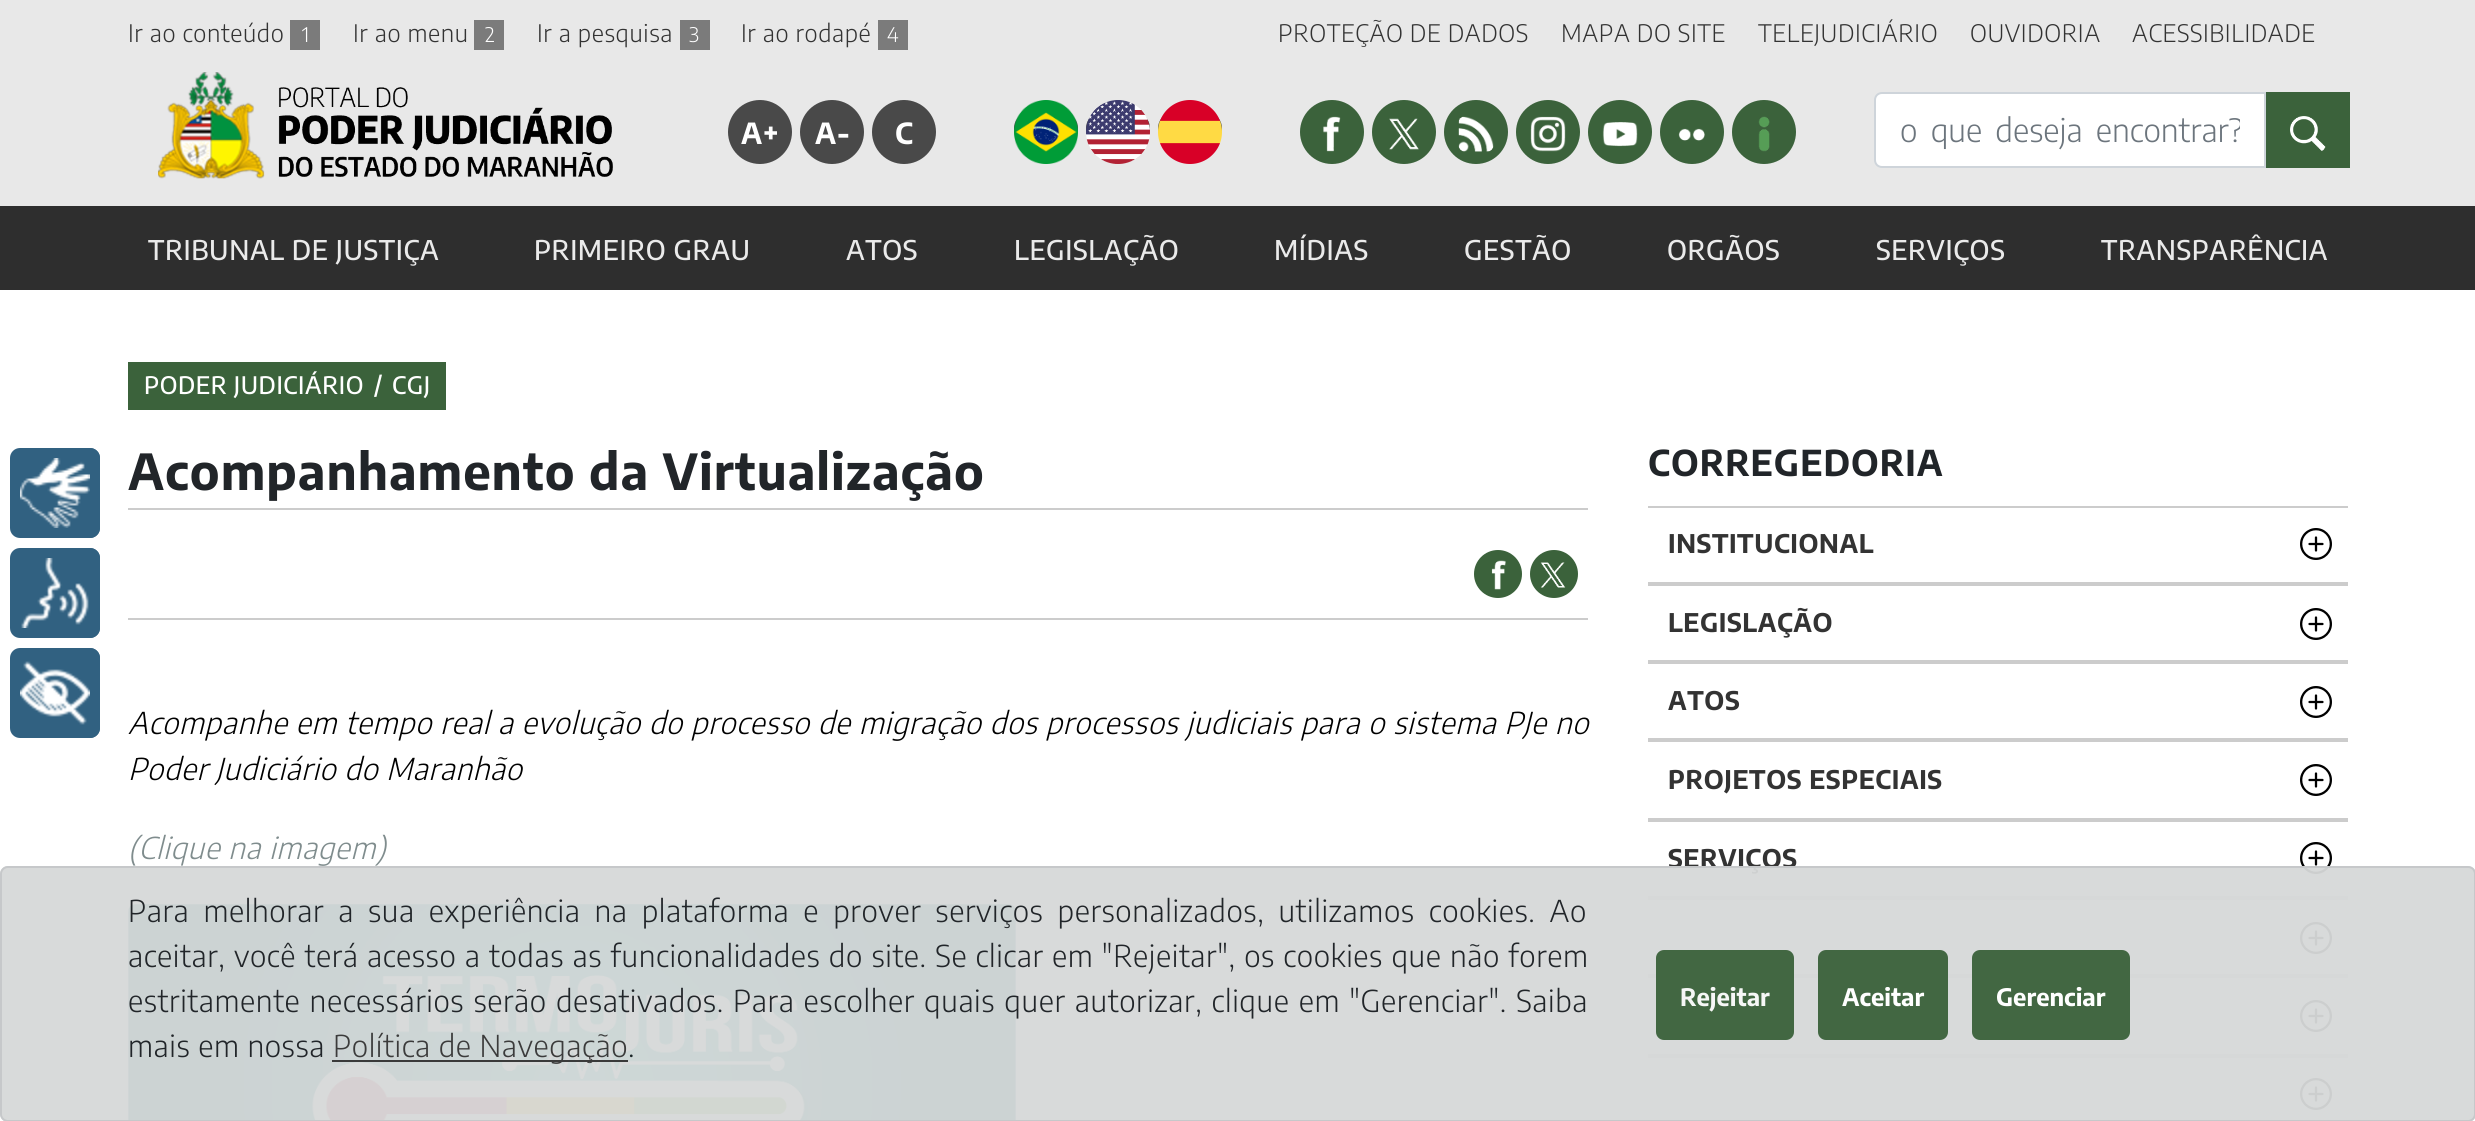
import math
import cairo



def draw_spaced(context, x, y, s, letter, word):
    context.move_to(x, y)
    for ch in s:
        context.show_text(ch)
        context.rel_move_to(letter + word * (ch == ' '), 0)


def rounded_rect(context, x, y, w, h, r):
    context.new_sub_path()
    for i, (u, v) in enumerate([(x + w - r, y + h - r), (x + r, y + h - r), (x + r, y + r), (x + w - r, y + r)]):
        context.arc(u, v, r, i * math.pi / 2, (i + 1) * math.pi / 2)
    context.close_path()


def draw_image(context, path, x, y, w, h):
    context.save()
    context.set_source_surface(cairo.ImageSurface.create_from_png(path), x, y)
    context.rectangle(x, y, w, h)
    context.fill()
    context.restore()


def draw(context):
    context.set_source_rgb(46 / 255, 46 / 255, 46 / 255)
    context.paint()
    context.set_source_rgb(232 / 255, 232 / 255, 232 / 255)
    context.rectangle(0, 0, 2475, 206)
    context.fill()
    context.set_source_rgb(123 / 255, 123 / 255, 123 / 255)
    context.rectangle(290, 20, 30, 30)
    context.fill()
    context.rectangle(474, 20, 30, 30)
    context.fill()
    context.rectangle(680, 20, 30, 30)
    context.fill()
    context.rectangle(878, 20, 30, 30)
    context.fill()
    draw_image(context, "images/1.png", 158, 72, 455, 107)
    context.set_source_rgb(73 / 255, 73 / 255, 73 / 255)
    context.arc(760, 132, 32, 0, 2 * math.pi)
    context.fill()
    context.arc(832, 132, 32, 0, 2 * math.pi)
    context.fill()
    context.arc(904, 132, 32, 0, 2 * math.pi)
    context.fill()
    context.new_path()
    context.move_to(1046, 106)
    context.curve_to(1063.5, 106, 1078, 116, 1078, 128)
    context.curve_to(1078, 140, 1063.5, 150, 1046, 150)
    context.curve_to(1028.5, 150, 1014, 140, 1014, 128)
    context.curve_to(1014, 116, 1028.5, 106, 1046, 106)
    context.close_path()
    context.fill()
    draw_image(context, "images/2.png", 1014, 100, 64, 64)
    context.new_path()
    context.move_to(1118, 106)
    context.curve_to(1135.5, 106, 1150, 116, 1150, 128)
    context.curve_to(1150, 140, 1135.5, 150, 1118, 150)
    context.curve_to(1100.5, 150, 1086, 140, 1086, 128)
    context.curve_to(1086, 116, 1100.5, 106, 1118, 106)
    context.close_path()
    context.fill()
    draw_image(context, "images/3.png", 1086, 100, 64, 64)
    context.new_path()
    context.move_to(1190, 106)
    context.curve_to(1207.5, 106, 1222, 116, 1222, 128)
    context.curve_to(1222, 140, 1207.5, 150, 1190, 150)
    context.curve_to(1172.5, 150, 1158, 140, 1158, 128)
    context.curve_to(1158, 116, 1172.5, 106, 1190, 106)
    context.close_path()
    context.fill()
    draw_image(context, "images/4.png", 1158, 100, 64, 64)
    context.set_source_rgb(59 / 255, 98 / 255, 59 / 255)
    context.arc(1332, 132, 32, 0, 2 * math.pi)
    context.fill()
    draw_image(context, "images/5.png", 1323, 116, 18, 36)
    context.arc(1404, 132, 32, 0, 2 * math.pi)
    context.fill()
    draw_image(context, "images/6.png", 1389, 118, 30, 32)
    context.arc(1476, 132, 32, 0, 2 * math.pi)
    context.fill()
    draw_image(context, "images/7.png", 1458, 116, 36, 36)
    context.arc(1548, 132, 32, 0, 2 * math.pi)
    context.fill()
    draw_image(context, "images/8.png", 1530, 116, 36, 36)
    context.arc(1620, 132, 32, 0, 2 * math.pi)
    context.fill()
    draw_image(context, "images/9.png", 1602, 122, 36, 25)
    context.arc(1692, 132, 32, 0, 2 * math.pi)
    context.fill()
    draw_image(context, "images/10.png", 1678, 128, 27, 13)
    context.arc(1764, 132, 32, 0, 2 * math.pi)
    context.fill()
    draw_image(context, "images/11.png", 1758, 116, 12, 36)
    context.set_source_rgb(1, 1, 1)
    context.new_path()
    context.move_to(1882, 93)
    context.line_to(2265, 93)
    context.line_to(2265, 167)
    context.line_to(1882, 167)
    context.curve_to(1878, 167, 1875, 164, 1875, 160)
    context.line_to(1875, 100)
    context.curve_to(1875, 96, 1878, 93, 1882, 93)
    context.close_path()
    context.fill_preserve()
    context.set_source_rgb(206 / 255, 212 / 255, 218 / 255)
    context.stroke()
    context.set_source_rgb(59 / 255, 98 / 255, 59 / 255)
    context.rectangle(2266, 92, 84, 76)
    context.fill()
    draw_image(context, "images/12.png", 2290, 116, 36, 35)
    context.set_source_rgb(1, 1, 1)
    context.rectangle(0, 290, 2475, 831)
    context.fill()
    context.set_source_rgb(49 / 255, 97 / 255, 129 / 255)
    rounded_rect(context, 10, 448, 90, 90, 10)
    context.fill()
    draw_image(context, "images/13.png", 20, 458, 70, 70)
    context.new_path()
    context.move_to(90, 448)
    context.curve_to(95.5, 448, 100, 452.5, 100, 458)
    context.line_to(100, 528)
    context.curve_to(100, 533.5, 95.5, 538, 90, 538)
    context.close_path()
    context.fill()
    rounded_rect(context, 10, 548, 90, 90, 10)
    context.fill()
    draw_image(context, "images/14.png", 21, 558, 68, 70)
    context.new_path()
    context.move_to(90, 548)
    context.curve_to(95.5, 548, 100, 552.5, 100, 558)
    context.line_to(100, 628)
    context.curve_to(100, 633.5, 95.5, 638, 90, 638)
    context.close_path()
    context.fill()
    rounded_rect(context, 10, 648, 90, 90, 10)
    context.fill()
    draw_image(context, "images/15.png", 20, 661, 70, 64)
    context.new_path()
    context.move_to(90, 648)
    context.curve_to(95.5, 648, 100, 652.5, 100, 658)
    context.line_to(100, 728)
    context.curve_to(100, 733.5, 95.5, 738, 90, 738)
    context.close_path()
    context.fill()
    context.set_source_rgb(59 / 255, 98 / 255, 59 / 255)
    context.rectangle(128, 362, 318, 48)
    context.fill()
    context.set_source_rgb(204 / 255, 204 / 255, 204 / 255)
    context.rectangle(128, 508, 1460, 2)
    context.fill()
    context.rectangle(128, 618, 1460, 2)
    context.fill()
    context.set_source_rgb(59 / 255, 98 / 255, 59 / 255)
    context.arc(1498, 574, 24, 0, 2 * math.pi)
    context.fill()
    draw_image(context, "images/16.png", 1491, 560, 15, 30)
    context.arc(1554, 574, 24, 0, 2 * math.pi)
    context.fill()
    draw_image(context, "images/17.png", 1540, 562, 26, 26)
    draw_image(context, "images/18.png", 128, 904, 888, 217)
    context.set_source_rgb(204 / 255, 204 / 255, 204 / 255)
    context.rectangle(1648, 506, 700, 2)
    context.fill()
    context.rectangle(1648, 582, 700, 4)
    context.fill()
    draw_image(context, "images/19.png", 2300, 528, 32, 32)
    context.rectangle(1648, 660, 700, 4)
    context.fill()
    draw_image(context, "images/19.png", 2300, 608, 32, 32)
    context.rectangle(1648, 738, 700, 4)
    context.fill()
    draw_image(context, "images/19.png", 2300, 686, 32, 32)
    context.rectangle(1648, 818, 700, 4)
    context.fill()
    draw_image(context, "images/19.png", 2300, 764, 32, 32)
    context.rectangle(1648, 896, 700, 4)
    context.fill()
    draw_image(context, "images/19.png", 2300, 842, 32, 32)
    context.rectangle(1648, 974, 700, 4)
    context.fill()
    draw_image(context, "images/19.png", 2300, 922, 32, 32)
    context.rectangle(1648, 1054, 700, 4)
    context.fill()
    draw_image(context, "images/19.png", 2300, 1000, 32, 32)
    draw_image(context, "images/19.png", 2300, 1078, 32, 32)
    context.select_font_face("Encode Sans Condensed Light")
    context.set_font_size(24)
    context.set_source_rgb(51 / 255, 51 / 255, 51 / 255)
    draw_spaced(context, 128, 42, "Ir ao conteúdo", 0.6, 0)
    context.set_font_size(20)
    context.set_source_rgb(1, 1, 1)
    draw_spaced(context, 302, 42, "1", 0.6, 0)
    context.set_font_size(24)
    context.set_source_rgb(51 / 255, 51 / 255, 51 / 255)
    draw_spaced(context, 353, 42, "Ir ao menu", 0.6, 0)
    context.set_font_size(20)
    context.set_source_rgb(1, 1, 1)
    draw_spaced(context, 485, 42, "2", 0.6, 0)
    context.set_font_size(24)
    context.set_source_rgb(51 / 255, 51 / 255, 51 / 255)
    draw_spaced(context, 537, 42, "Ir a pesquisa", 0.6, 0)
    context.set_font_size(20)
    context.set_source_rgb(1, 1, 1)
    draw_spaced(context, 689, 42, "3", 0.6, 0)
    context.set_font_size(24)
    context.set_source_rgb(51 / 255, 51 / 255, 51 / 255)
    draw_spaced(context, 741, 42, "Ir ao rodapé", 0.6, 0)
    context.set_font_size(20)
    context.set_source_rgb(1, 1, 1)
    draw_spaced(context, 887, 42, "4", 0.6, 0)
    context.set_font_size(24)
    context.set_source_rgb(51 / 255, 51 / 255, 51 / 255)
    draw_spaced(context, 1278, 42, "PROTEÇÃO DE DADOS", 0.6, 0)
    draw_spaced(context, 1561, 42, "MAPA DO SITE", 0.6, 0)
    draw_spaced(context, 1758, 42, "TELEJUDICIÁRIO", 0.6, 0)
    draw_spaced(context, 1970, 42, "OUVIDORIA", 0.6, 0)
    draw_spaced(context, 2132, 42, "ACESSIBILIDADE", 0.6, 0)
    context.select_font_face("Encode Sans Condensed", cairo.FontSlant.NORMAL, cairo.FontWeight.BOLD)
    context.set_font_size(29)
    context.set_source_rgb(1, 1, 1)
    draw_spaced(context, 741, 144, "A+", 0.6, 0)
    draw_spaced(context, 815, 144, "A-", 0.6, 0)
    draw_spaced(context, 895, 144, "C", 0.6, 0)
    context.save()
    context.rectangle(1900, 110, 340, 40)
    context.clip()
    context.select_font_face("Encode Sans Condensed Light")
    context.set_font_size(32)
    context.set_source_rgb(108 / 255, 117 / 255, 125 / 255)
    draw_spaced(context, 1900, 142, "o que deseja encontrar?", 0, 5.5)
    context.restore()
    context.select_font_face("Encode Sans Condensed Medium")
    context.set_font_size(27)
    context.set_source_rgb(234 / 255, 234 / 255, 234 / 255)
    draw_spaced(context, 148, 260, "TRIBUNAL DE JUSTIÇA", 0.6, 0)
    draw_spaced(context, 534, 260, "PRIMEIRO GRAU", 0.6, 0)
    draw_spaced(context, 846, 260, "ATOS", 0.6, 0)
    draw_spaced(context, 1014, 260, "LEGISLAÇÃO", 0.6, 0)
    draw_spaced(context, 1274, 260, "MÍDIAS", 0.6, 0)
    draw_spaced(context, 1464, 260, "GESTÃO", 0.6, 0)
    draw_spaced(context, 1667, 260, "ORGÃOS", 0.6, 0)
    draw_spaced(context, 1876, 260, "SERVIÇOS", 0.6, 0)
    draw_spaced(context, 2101, 260, "TRANSPARÊNCIA", 0.6, 0)
    context.set_font_size(24)
    context.set_source_rgb(1, 1, 1)
    draw_spaced(context, 144, 394, "PODER JUDICIÁRIO", 0.6, 0)
    draw_spaced(context, 374, 394, "/", 0.6, 0)
    draw_spaced(context, 392, 394, "CGJ", 0.6, 0)
    context.select_font_face("Encode Sans Condensed", cairo.FontSlant.NORMAL, cairo.FontWeight.BOLD)
    context.set_font_size(49.5)
    context.set_source_rgb(33 / 255, 37 / 255, 41 / 255)
    draw_spaced(context, 128, 490, "Acompanhamento da Virtualização", 1, 0)
    context.select_font_face("Encode Sans Condensed Light", cairo.FontSlant.ITALIC)
    context.set_font_size(30)
    context.set_source_rgb(0, 0, 0)
    draw_spaced(context, 128, 734, "Acompanhe em tempo real a evolução do processo de migração dos processos judiciais para o sistema PJe no", 0.6, 0.2)
    draw_spaced(context, 128, 780, "Poder Judiciário do Maranhão", 0.6, 0)
    context.set_source_rgb(127 / 255, 140 / 255, 141 / 255)
    draw_spaced(context, 128, 859, "(Clique na imagem)", 0.6, 0)
    context.select_font_face("Encode Sans Condensed", cairo.FontSlant.NORMAL, cairo.FontWeight.BOLD)
    context.set_font_size(35.5)
    context.set_source_rgb(33 / 255, 37 / 255, 41 / 255)
    draw_spaced(context, 1648, 476, "CORREGEDORIA", 1, 0)
    context.set_font_size(25.6)
    context.set_source_rgb(51 / 255, 51 / 255, 51 / 255)
    draw_spaced(context, 1668, 553, "INSTITUCIONAL", 0.6, 0)
    draw_spaced(context, 1668, 632, "LEGISLAÇÃO", 0.6, 0)
    draw_spaced(context, 1668, 710, "ATOS", 0.6, 0)
    draw_spaced(context, 1668, 789, "PROJETOS ESPECIAIS", 0.6, 0)
    draw_spaced(context, 1668, 868, "SERVIÇOS", 0.6, 0)
    context.set_source_rgba(214 / 255, 216 / 255, 217 / 255, 0.95)
    rounded_rect(context, 0, 866, 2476, 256, 8)
    context.fill()
    rounded_rect(context, 1, 867, 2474, 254, 7)
    context.set_source_rgba(198 / 255, 200 / 255, 202 / 255, 0.95)
    context.stroke()
    context.select_font_face("Encode Sans Condensed Light")
    context.set_font_size(30)
    context.set_source_rgb(33 / 255, 37 / 255, 41 / 255)
    draw_spaced(context, 128, 922, "Para melhorar a sua experiência na plataforma e prover serviços personalizados, utilizamos cookies. Ao", 0.6, 6.25)
    draw_spaced(context, 128, 967, "aceitar, você terá acesso a todas as funcionalidades do site. Se clicar em \"Rejeitar\", os cookies que não forem", 0.6, 0.6)
    draw_spaced(context, 128, 1012, "estritamente necessários serão desativados. Para escolher quais quer autorizar, clique em \"Gerenciar\". Saiba", 0.6, 1.4)
    draw_spaced(context, 128, 1057, "mais em nossa", 0.6, 0)
    context.set_source_rgba(51 / 255, 51 / 255, 51 / 255, 0.95)
    context.rectangle(332, 1060, 296, 2)
    context.fill()
    context.set_source_rgb(59 / 255, 59 / 255, 59 / 255)
    draw_spaced(context, 333, 1057, "Política de Navegação", 0.6, 0)
    context.set_source_rgb(27 / 255, 38 / 255, 40 / 255)
    draw_spaced(context, 628, 1057, ".", 0.6, 0)
    context.set_source_rgba(59 / 255, 98 / 255, 59 / 255, 0.95)
    rounded_rect(context, 1656, 950, 138, 90, 8)
    context.fill()
    context.select_font_face("Encode Sans Condensed", cairo.FontSlant.NORMAL, cairo.FontWeight.BOLD)
    context.set_font_size(24)
    context.set_source_rgb(246 / 255, 247 / 255, 246 / 255)
    context.move_to(1680, 1006)
    context.show_text("Rejeitar")
    context.set_source_rgba(59 / 255, 98 / 255, 59 / 255, 0.95)
    rounded_rect(context, 1818, 950, 130, 90, 8)
    context.fill()
    context.set_source_rgb(1, 1, 1)
    context.move_to(1842, 1006)
    context.show_text("Aceitar")
    context.set_source_rgba(59 / 255, 98 / 255, 59 / 255, 0.95)
    rounded_rect(context, 1972, 950, 158, 90, 8)
    context.fill()
    context.set_source_rgb(1, 1, 1)
    context.move_to(1996, 1006)
    context.show_text("Gerenciar")


surface = cairo.ImageSurface(cairo.Format.RGB24, 2475, 1121)
context = cairo.Context(surface)
options = cairo.FontOptions()
options.set_hint_metrics(cairo.HintMetrics.OFF)
options.set_hint_style(cairo.HintStyle.NONE)
context.set_font_options(options)
context.set_miter_limit(4)
draw(context)
surface.write_to_png("out.png")
